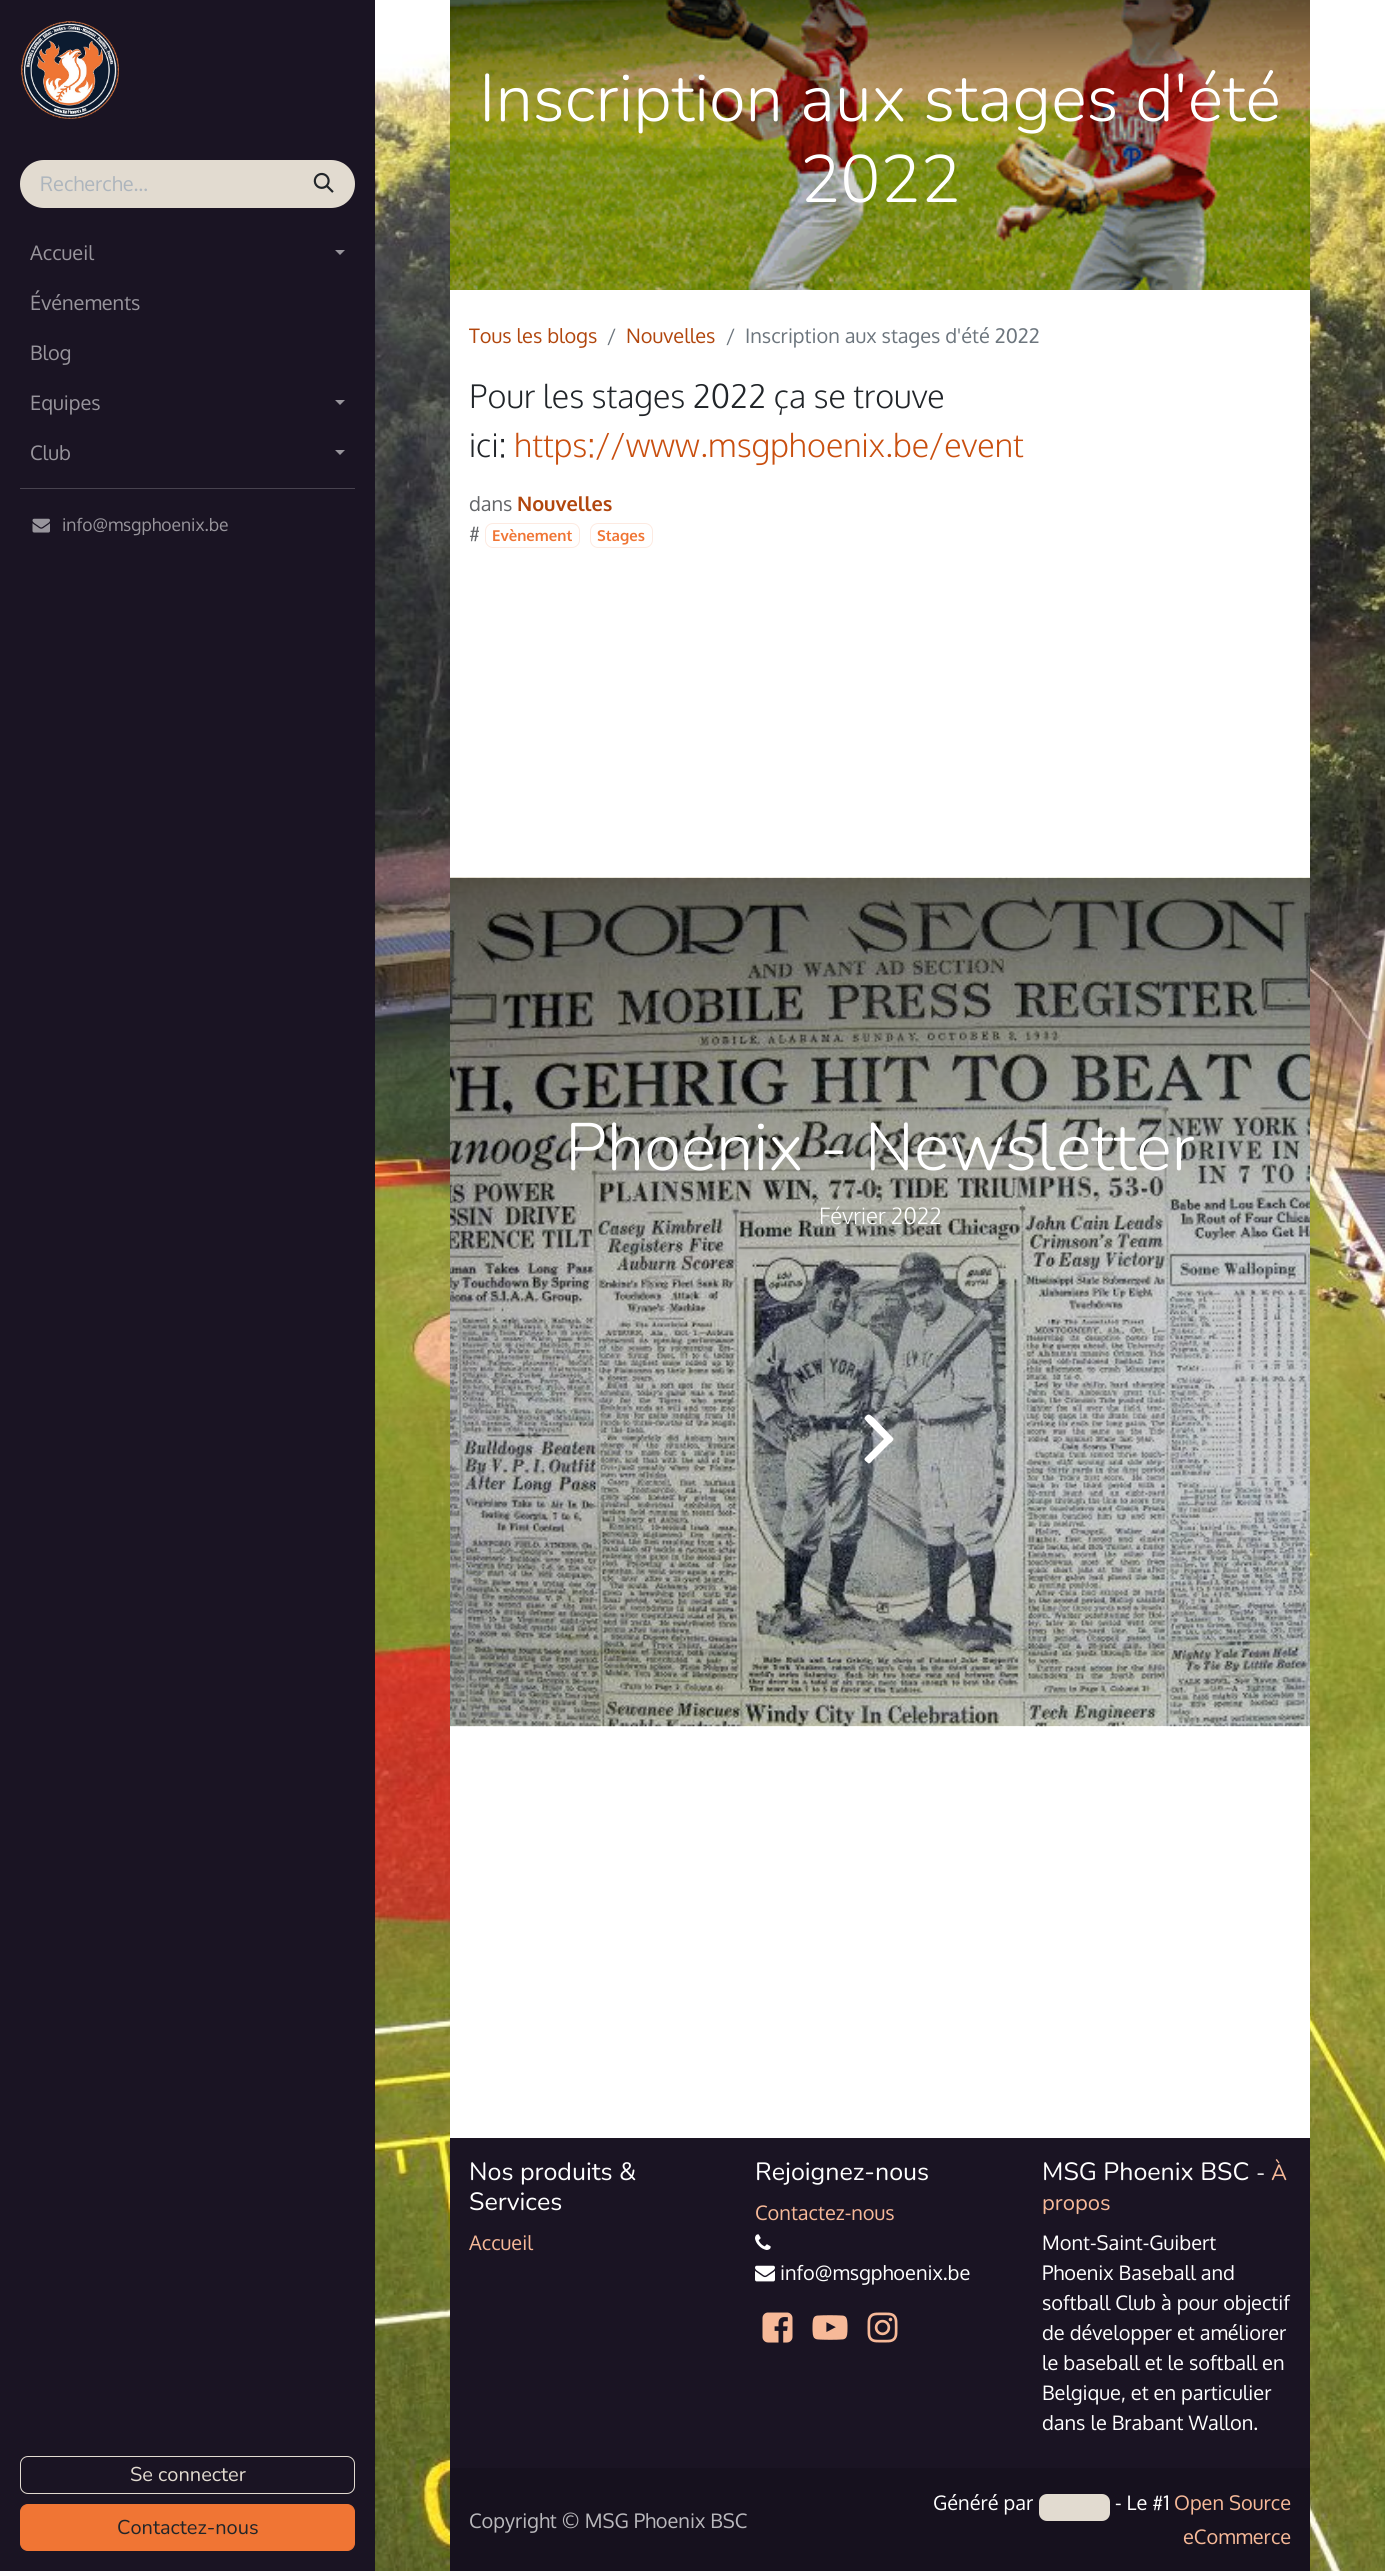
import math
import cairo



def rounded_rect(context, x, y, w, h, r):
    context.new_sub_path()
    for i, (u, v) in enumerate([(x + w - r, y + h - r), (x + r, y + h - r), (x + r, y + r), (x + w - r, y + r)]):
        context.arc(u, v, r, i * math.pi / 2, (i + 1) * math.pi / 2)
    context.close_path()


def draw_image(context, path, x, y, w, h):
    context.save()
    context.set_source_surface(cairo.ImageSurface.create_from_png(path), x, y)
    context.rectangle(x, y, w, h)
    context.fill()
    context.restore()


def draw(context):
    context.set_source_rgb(1, 1, 1)
    context.paint()
    draw_image(context, "images/1.png", 375, 9, 1010, 2562)
    context.set_source_rgb(26 / 255, 20 / 255, 35 / 255)
    context.rectangle(0, 0, 375, 2571)
    context.fill()
    draw_image(context, "images/2.png", 21, 21, 98, 98)
    context.set_source_rgb(226 / 255, 219 / 255, 208 / 255)
    context.new_path()
    context.move_to(44, 160)
    context.line_to(299, 160)
    context.line_to(299, 208)
    context.line_to(44, 208)
    context.curve_to(30.5, 208, 20, 197.5, 20, 184)
    context.curve_to(20, 170.5, 30.5, 160, 44, 160)
    context.close_path()
    context.fill()
    context.new_path()
    context.move_to(298, 160)
    context.line_to(331, 160)
    context.curve_to(344.5, 160, 355, 170.5, 355, 184)
    context.curve_to(355, 197.5, 344.5, 208, 331, 208)
    context.line_to(298, 208)
    context.close_path()
    context.fill()
    draw_image(context, "images/3.png", 313, 172, 21, 21)
    context.set_source_rgb(152 / 255, 149 / 255, 156 / 255)
    context.new_path()
    context.move_to(335, 250)
    context.line_to(345, 250)
    context.line_to(340, 255)
    context.close_path()
    context.fill()
    context.new_path()
    context.move_to(335, 400)
    context.line_to(345, 400)
    context.line_to(340, 405)
    context.close_path()
    context.fill()
    context.new_path()
    context.move_to(335, 450)
    context.line_to(345, 450)
    context.line_to(340, 455)
    context.close_path()
    context.fill()
    context.set_source_rgb(72 / 255, 67 / 255, 79 / 255)
    context.rectangle(20, 488, 335, 1)
    context.fill()
    draw_image(context, "images/4.png", 32, 518, 18, 15)
    rounded_rect(context, 20.5, 2456.5, 334, 37, 7.5)
    context.set_source_rgb(226 / 255, 219 / 255, 208 / 255)
    context.set_line_width(1)
    context.stroke()
    context.set_source_rgb(240 / 255, 117 / 255, 52 / 255)
    rounded_rect(context, 20.5, 2504.5, 334, 46, 7.5)
    context.fill_preserve()
    context.stroke()
    context.set_source_rgb(1, 1, 1)
    context.rectangle(450, 290, 860, 1848)
    context.fill()
    draw_image(context, "images/5.png", 450, 0, 860, 290)
    rounded_rect(context, 485.5, 523.5, 94, 24, 7.5)
    context.set_source_rgb(253 / 255, 234 / 255, 225 / 255)
    context.stroke()
    rounded_rect(context, 590.5, 523.5, 62, 24, 7.5)
    context.stroke()
    draw_image(context, "images/6.png", 450, 877, 860, 850)
    context.set_source_rgb(1, 1, 1)
    context.new_path()
    context.move_to(893, 1438)
    context.curve_to(895, 1440, 889, 1444, 889, 1444)
    context.line_to(874, 1459)
    context.curve_to(873, 1459, 870, 1465, 868, 1463)
    context.curve_to(867, 1462, 863, 1460, 865, 1458)
    context.line_to(884, 1439)
    context.line_to(868, 1423)
    context.curve_to(865, 1419, 863, 1419, 866, 1416)
    context.curve_to(869, 1413, 870, 1415, 874, 1418)
    context.close_path()
    context.fill()
    context.set_source_rgb(26 / 255, 20 / 255, 35 / 255)
    context.rectangle(450, 2138, 860, 330)
    context.fill()
    draw_image(context, "images/7.png", 755, 2234, 16, 16)
    draw_image(context, "images/8.png", 755, 2265, 20, 17)
    draw_image(context, "images/9.png", 762, 2312, 31, 31)
    draw_image(context, "images/10.png", 812, 2315, 36, 25)
    draw_image(context, "images/11.png", 867, 2312, 31, 31)
    context.set_source_rgb(22 / 255, 17 / 255, 30 / 255)
    context.rectangle(450, 2468, 860, 103)
    context.fill()
    context.set_source_rgb(226 / 255, 219 / 255, 208 / 255)
    rounded_rect(context, 1039, 2494, 71, 27, 8)
    context.fill()
    context.select_font_face("Oxygen")
    context.set_font_size(20)
    context.set_source_rgb(173 / 255, 181 / 255, 189 / 255)
    context.move_to(40, 191)
    context.show_text("Recherche…")
    context.set_source_rgb(152 / 255, 149 / 255, 156 / 255)
    context.move_to(30, 260)
    context.show_text("Accueil")
    context.move_to(30, 310)
    context.show_text("Événements")
    context.move_to(30, 360)
    context.show_text("Blog")
    context.move_to(30, 410)
    context.show_text("Equipes")
    context.move_to(30, 460)
    context.show_text("Club")
    context.set_font_size(17.5)
    context.move_to(62, 531)
    context.show_text("info@msgphoenix.be")
    context.select_font_face("Nunito")
    context.set_font_size(20)
    context.set_source_rgb(226 / 255, 219 / 255, 208 / 255)
    context.move_to(130, 2481)
    context.show_text("Se connecter")
    context.set_source_rgb(33 / 255, 37 / 255, 41 / 255)
    context.move_to(117, 2534)
    context.show_text("Contactez-nous")
    context.select_font_face("Nunito Light")
    context.set_font_size(66.9)
    context.set_source_rgb(1, 1, 1)
    context.move_to(479, 121)
    context.show_text("Inscription aux stages d'été")
    context.move_to(800, 202)
    context.show_text("2022")
    context.select_font_face("Oxygen")
    context.set_font_size(20)
    context.set_source_rgb(177 / 255, 70 / 255, 13 / 255)
    context.move_to(469, 343)
    context.show_text("Tous les blogs")
    context.set_source_rgb(108 / 255, 117 / 255, 125 / 255)
    context.move_to(607, 343)
    context.show_text("/")
    context.set_source_rgb(177 / 255, 70 / 255, 13 / 255)
    context.move_to(626, 343)
    context.show_text("Nouvelles")
    context.set_source_rgb(108 / 255, 117 / 255, 125 / 255)
    context.move_to(726, 343)
    context.show_text("/")
    context.move_to(745, 343)
    context.show_text("Inscription aux stages d'été 2022")
    context.select_font_face("Oxygen Light")
    context.set_font_size(32.5)
    context.set_source_rgb(33 / 255, 37 / 255, 41 / 255)
    context.move_to(469, 408)
    context.show_text("Pour les stages 2022 ça se trouve")
    context.move_to(469, 457)
    context.show_text("ici:")
    context.set_source_rgb(201 / 255, 79 / 255, 15 / 255)
    context.move_to(514, 457)
    context.show_text("https://www.msgphoenix.be/event")
    context.select_font_face("Oxygen")
    context.set_font_size(20)
    context.set_source_rgb(100 / 255, 102 / 255, 105 / 255)
    context.move_to(469, 511)
    context.show_text("dans")
    context.select_font_face("Oxygen", cairo.FontSlant.NORMAL, cairo.FontWeight.BOLD)
    context.set_source_rgb(177 / 255, 70 / 255, 13 / 255)
    context.move_to(517, 511)
    context.show_text("Nouvelles")
    context.select_font_face("Oxygen")
    context.set_source_rgb(100 / 255, 102 / 255, 105 / 255)
    context.move_to(469, 541)
    context.show_text("#")
    context.select_font_face("Oxygen", cairo.FontSlant.NORMAL, cairo.FontWeight.BOLD)
    context.set_font_size(15)
    context.set_source_rgb(240 / 255, 117 / 255, 52 / 255)
    context.move_to(492, 541)
    context.show_text("Evènement")
    context.move_to(597, 541)
    context.show_text("Stages")
    context.select_font_face("Nunito Light")
    context.set_font_size(66.9)
    context.set_source_rgb(1, 1, 1)
    context.move_to(565, 1170)
    context.show_text("Phoenix - Newsletter")
    context.select_font_face("Oxygen Light")
    context.set_font_size(22.5)
    context.move_to(819, 1224)
    context.show_text("Février 2022")
    context.select_font_face("Nunito")
    context.set_font_size(25)
    context.move_to(469, 2180)
    context.show_text("Nos produits &")
    context.move_to(469, 2210)
    context.show_text("Services")
    context.select_font_face("Oxygen")
    context.set_font_size(20)
    context.set_source_rgb(247 / 255, 185 / 255, 152 / 255)
    context.move_to(469, 2250)
    context.show_text("Accueil")
    context.select_font_face("Nunito")
    context.set_font_size(25)
    context.set_source_rgb(1, 1, 1)
    context.move_to(755, 2180)
    context.show_text("Rejoignez-nous")
    context.select_font_face("Oxygen")
    context.set_font_size(20)
    context.set_source_rgb(247 / 255, 185 / 255, 152 / 255)
    context.move_to(755, 2220)
    context.show_text("Contactez-nous")
    context.set_source_rgb(1, 1, 1)
    context.move_to(780, 2280)
    context.show_text("info@msgphoenix.be")
    context.select_font_face("Nunito")
    context.set_font_size(25)
    context.move_to(1042, 2180)
    context.show_text("MSG Phoenix BSC")
    context.set_font_size(22)
    context.move_to(1256, 2180)
    context.show_text("-")
    context.set_source_rgb(247 / 255, 185 / 255, 152 / 255)
    context.move_to(1271, 2180)
    context.show_text("À")
    context.move_to(1042, 2210)
    context.show_text("propos")
    context.select_font_face("Oxygen")
    context.set_font_size(20)
    context.set_source_rgb(1, 1, 1)
    context.move_to(1042, 2250)
    context.show_text("Mont-Saint-Guibert")
    context.move_to(1042, 2280)
    context.show_text("Phoenix Baseball and")
    context.move_to(1042, 2310)
    context.show_text("softball Club à pour objectif")
    context.move_to(1042, 2340)
    context.show_text("de développer et améliorer")
    context.move_to(1042, 2370)
    context.show_text("le baseball et le softball en")
    context.move_to(1042, 2400)
    context.show_text("Belgique, et en particulier")
    context.move_to(1042, 2430)
    context.show_text("dans le Brabant Wallon.")
    context.set_source_rgb(185 / 255, 184 / 255, 188 / 255)
    context.move_to(469, 2528)
    context.show_text("Copyright © MSG Phoenix BSC")
    context.set_source_rgb(1, 1, 1)
    context.move_to(933, 2510)
    context.show_text("Généré par")
    context.move_to(1115, 2510)
    context.show_text("- Le #1")
    context.set_source_rgb(247 / 255, 185 / 255, 152 / 255)
    context.move_to(1174, 2510)
    context.show_text("Open Source")
    context.move_to(1183, 2544)
    context.show_text("eCommerce")


surface = cairo.ImageSurface(cairo.Format.RGB24, 1385, 2571)
context = cairo.Context(surface)
options = cairo.FontOptions()
options.set_hint_metrics(cairo.HintMetrics.OFF)
options.set_hint_style(cairo.HintStyle.NONE)
context.set_font_options(options)
context.set_miter_limit(4)
draw(context)
surface.write_to_png("out.png")
